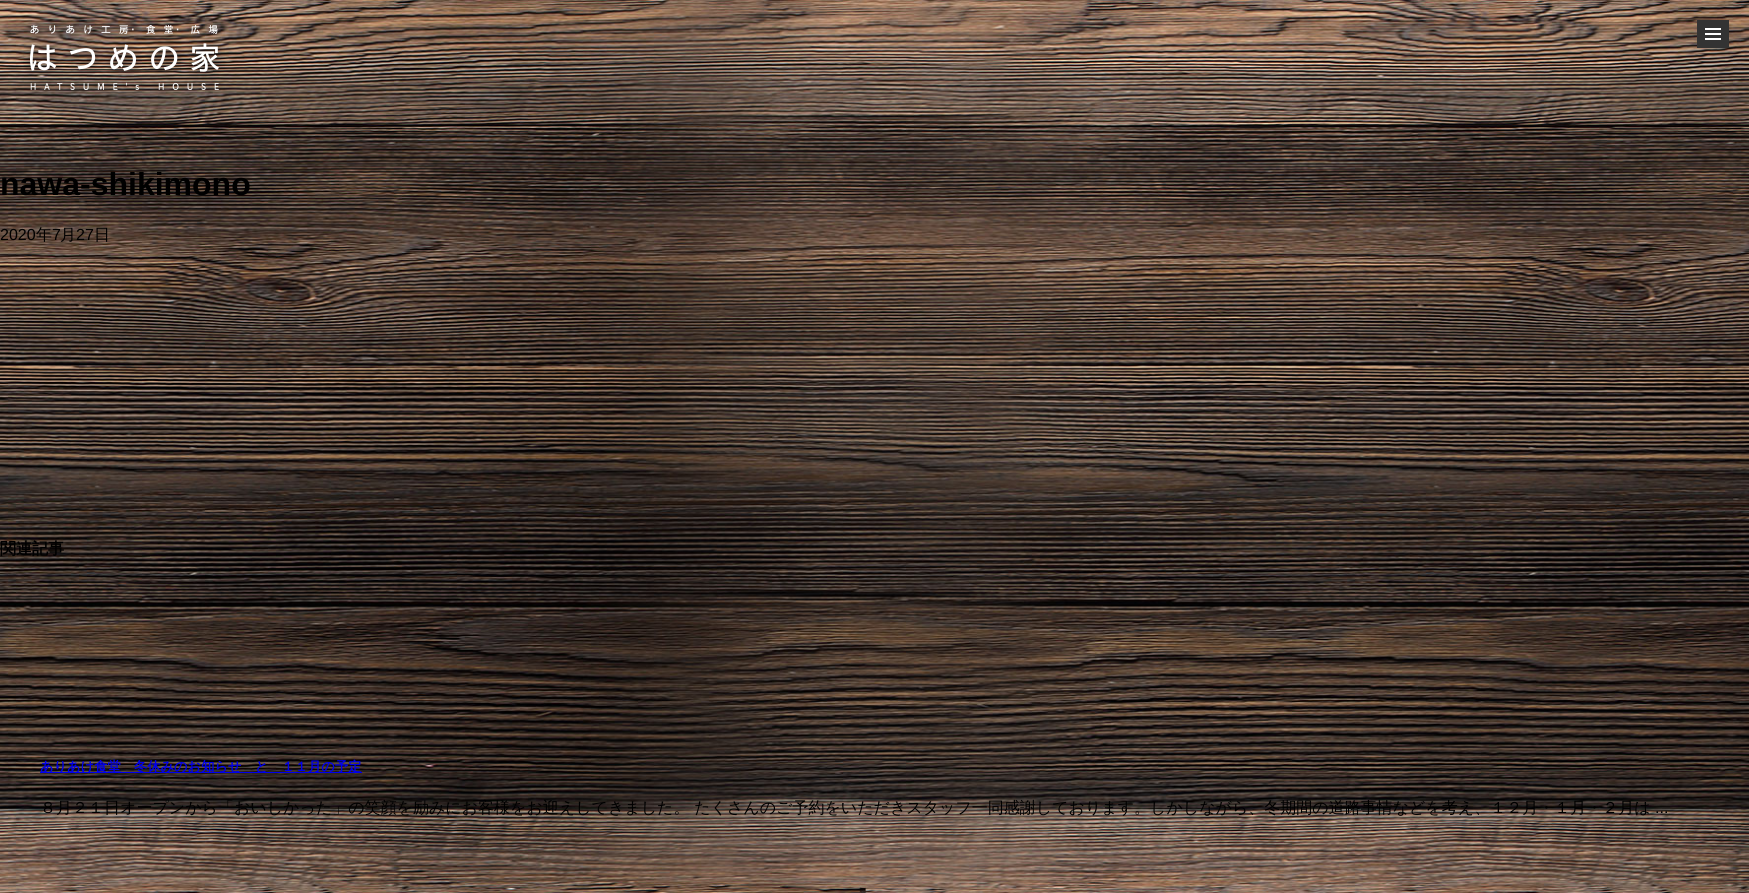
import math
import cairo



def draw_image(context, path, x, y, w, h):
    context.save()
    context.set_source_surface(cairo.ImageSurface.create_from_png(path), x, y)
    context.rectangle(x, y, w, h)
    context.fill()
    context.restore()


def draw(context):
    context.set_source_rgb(1, 1, 1)
    context.paint()
    draw_image(context, "images/1.png", 0, 0, 1749, 893)
    context.set_source_rgb(51 / 255, 51 / 255, 51 / 255)
    context.rectangle(1697, 20, 32, 28)
    context.fill()
    context.set_source_rgb(1, 1, 1)
    context.rectangle(1705, 28, 16, 2)
    context.fill()
    context.rectangle(1705, 33, 16, 2)
    context.fill()
    context.rectangle(1705, 38, 16, 2)
    context.fill()
    draw_image(context, "images/2.png", 23, 19, 202, 76)
    context.set_source_rgb(0, 0, 238 / 255)
    context.rectangle(40, 772, 322, 1)
    context.fill()
    context.select_font_face("Liberation Sans", cairo.FontSlant.NORMAL, cairo.FontWeight.BOLD)
    context.set_font_size(32)
    context.set_source_rgb(0, 0, 0)
    context.move_to(0, 195)
    context.show_text("nawa-shikimono")
    context.select_font_face("Liberation Sans")
    context.set_font_size(16)
    context.move_to(0, 240)
    context.show_text("2020")
    context.select_font_face("WenQuanYi Zen Hei Medium")
    context.move_to(36, 240)
    context.show_text("年")
    context.select_font_face("Liberation Sans")
    context.move_to(52, 240)
    context.show_text("7")
    context.select_font_face("WenQuanYi Zen Hei Medium")
    context.move_to(60, 240)
    context.show_text("月")
    context.select_font_face("Liberation Sans")
    context.move_to(76, 240)
    context.show_text("27")
    context.select_font_face("WenQuanYi Zen Hei Medium")
    context.move_to(94, 240)
    context.show_text("日")
    context.select_font_face("WenQuanYi Zen Hei", cairo.FontSlant.NORMAL, cairo.FontWeight.BOLD)
    context.move_to(0, 554)
    context.show_text("関連記事")
    context.set_font_size(13.25)
    context.set_source_rgb(0, 0, 238 / 255)
    context.move_to(40, 771)
    context.show_text("ありあけ食堂　冬休みのお知らせ　と　１１月の予定")
    context.select_font_face("WenQuanYi Zen Hei Medium")
    context.set_font_size(16)
    context.set_source_rgb(0, 0, 0)
    context.move_to(40, 813)
    context.show_text("８月２１日オープンから「おいしかった」の笑顔を励みにお客様をお迎えしてきました。 たくさんのご予約をいただきスタッフ一同感謝しております。しかしながら、冬期間の道路事情などを考え、１２月・１月・２月は")
    context.select_font_face("Liberation Sans")
    context.move_to(1655, 813)
    context.show_text("...")


surface = cairo.ImageSurface(cairo.Format.RGB24, 1749, 893)
context = cairo.Context(surface)
options = cairo.FontOptions()
options.set_hint_metrics(cairo.HintMetrics.OFF)
options.set_hint_style(cairo.HintStyle.NONE)
context.set_font_options(options)
context.set_miter_limit(4)
draw(context)
surface.write_to_png("out.png")
